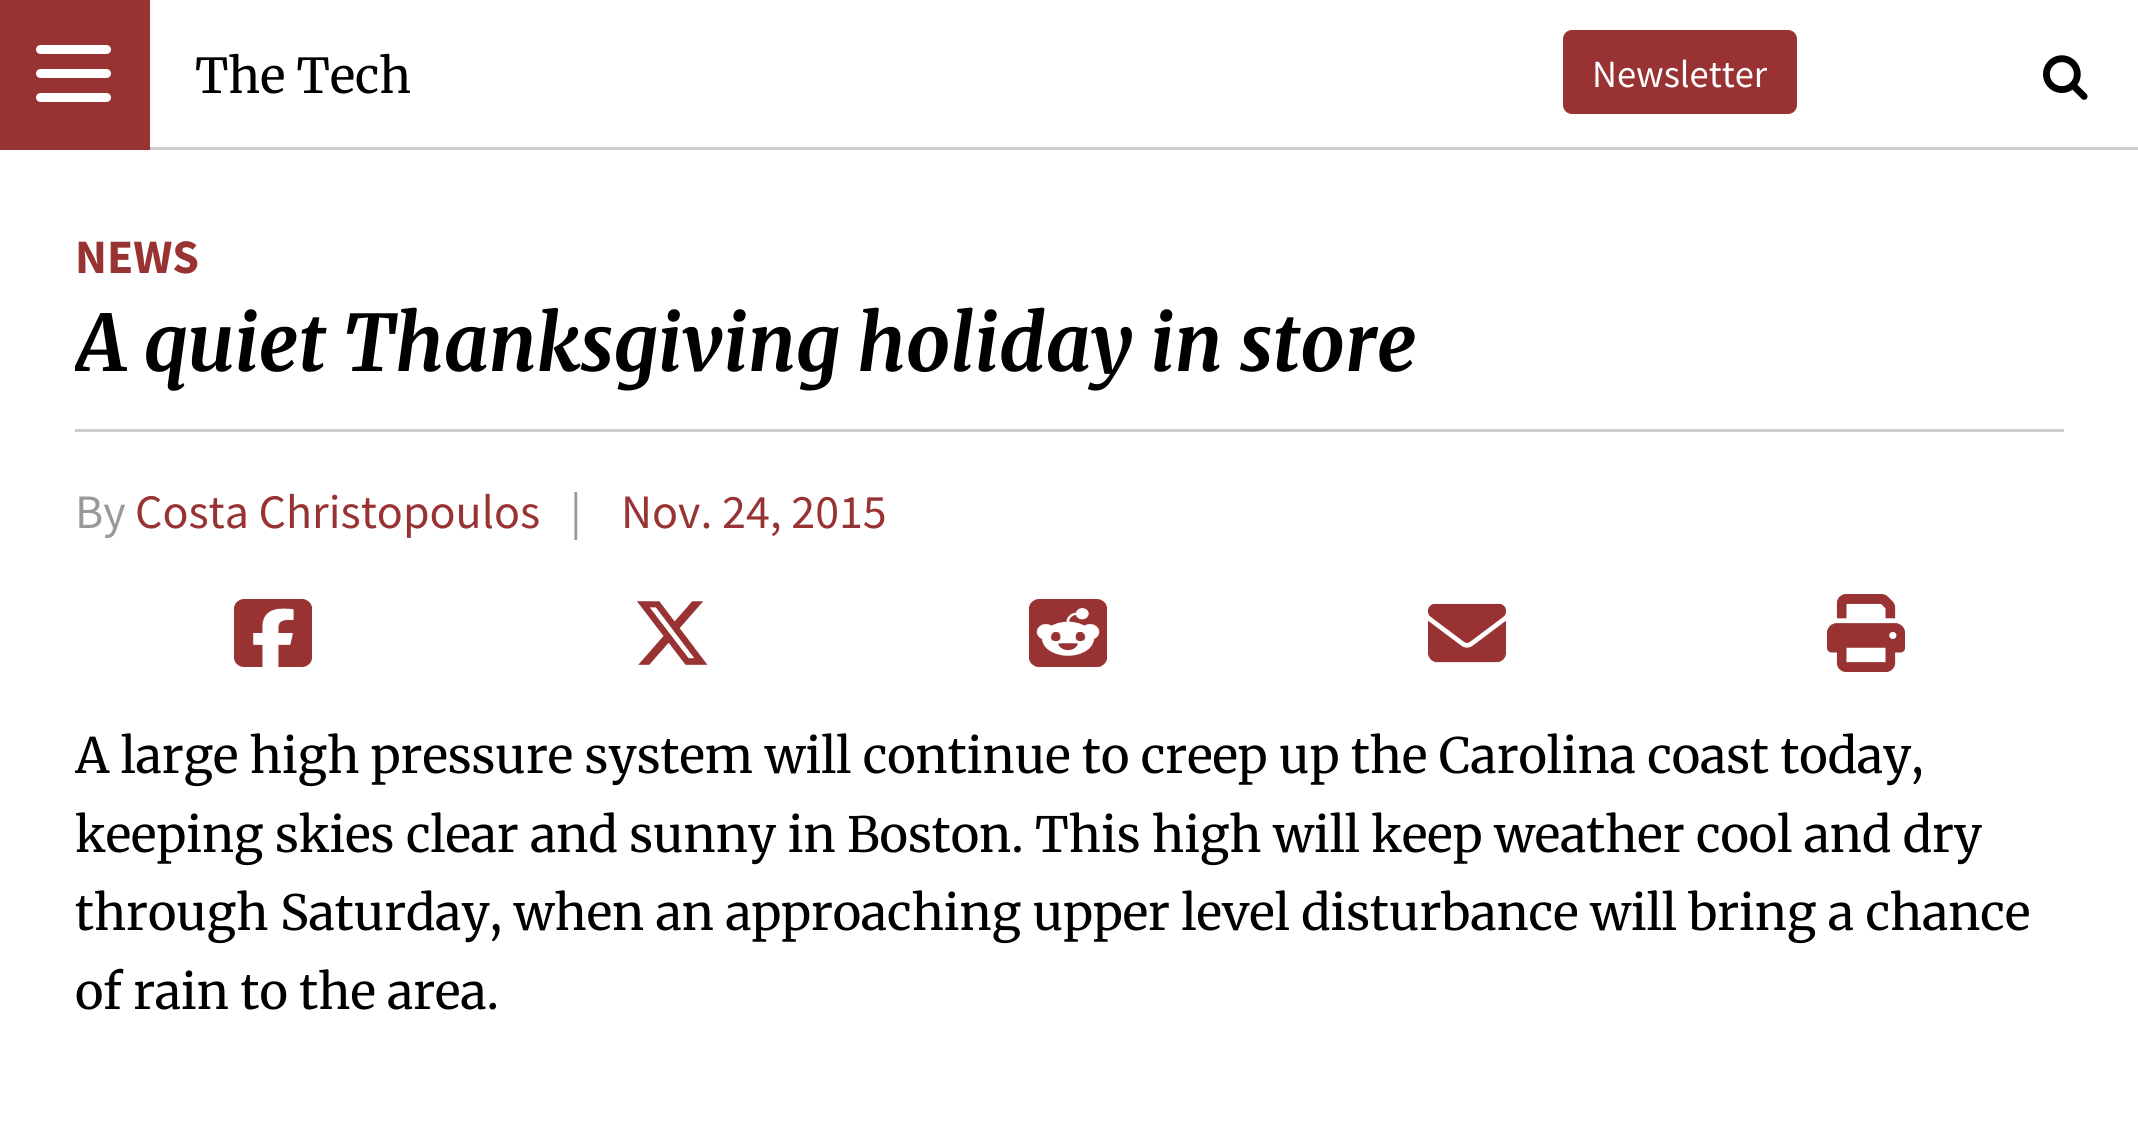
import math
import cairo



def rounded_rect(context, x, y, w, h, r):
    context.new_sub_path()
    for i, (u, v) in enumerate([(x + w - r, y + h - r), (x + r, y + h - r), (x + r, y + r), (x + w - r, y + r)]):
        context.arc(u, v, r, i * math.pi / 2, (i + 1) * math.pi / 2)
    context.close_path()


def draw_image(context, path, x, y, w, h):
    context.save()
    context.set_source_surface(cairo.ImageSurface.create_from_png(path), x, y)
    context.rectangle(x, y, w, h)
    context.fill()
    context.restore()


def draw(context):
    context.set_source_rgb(1, 1, 1)
    context.paint()
    context.set_source_rgb(204 / 255, 204 / 255, 204 / 255)
    context.rectangle(150, 147, 1988, 3)
    context.fill()
    context.set_source_rgb(153 / 255, 51 / 255, 51 / 255)
    context.rectangle(0, 0, 150, 150)
    context.fill()
    context.set_source_rgb(1, 1, 1)
    rounded_rect(context, 36, 45, 75, 9, 4.5)
    context.fill()
    rounded_rect(context, 36, 69, 75, 9, 4.5)
    context.fill()
    rounded_rect(context, 36, 93, 75, 9, 4.5)
    context.fill()
    context.set_source_rgb(153 / 255, 51 / 255, 51 / 255)
    rounded_rect(context, 1563, 30, 234, 84, 9)
    context.fill()
    draw_image(context, "images/1.png", 2043, 55, 45, 45)
    context.set_source_rgb(204 / 255, 204 / 255, 204 / 255)
    context.rectangle(75, 429, 1989, 3)
    context.fill()
    draw_image(context, "images/2.png", 234, 599, 78, 68)
    draw_image(context, "images/3.png", 636, 601, 72, 64)
    draw_image(context, "images/4.png", 1029, 599, 78, 68)
    draw_image(context, "images/5.png", 1428, 603, 78, 60)
    draw_image(context, "images/6.png", 1827, 594, 78, 78)
    context.select_font_face("Merriweather")
    context.set_font_size(48)
    context.set_source_rgb(0, 0, 0)
    context.move_to(195, 93)
    context.show_text("The Tech")
    context.select_font_face("Source Sans Pro")
    context.set_font_size(38.5)
    context.set_source_rgb(1, 1, 1)
    context.move_to(1592, 87)
    context.show_text("Newsletter")
    context.select_font_face("Source Sans Pro", cairo.FontSlant.NORMAL, cairo.FontWeight.BOLD)
    context.set_font_size(48)
    context.set_source_rgb(153 / 255, 51 / 255, 51 / 255)
    context.move_to(75, 273)
    context.show_text("NEWS")
    context.save()
    context.rectangle(75, 225, 1989, 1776)
    context.clip()
    context.select_font_face("Merriweather", cairo.FontSlant.ITALIC, cairo.FontWeight.BOLD)
    context.set_font_size(77.7)
    context.set_source_rgb(0, 0, 0)
    context.move_to(75, 371)
    context.show_text("A quiet Thanksgiving holiday in store")
    context.restore()
    context.select_font_face("Source Sans Pro")
    context.set_source_rgb(153 / 255, 153 / 255, 153 / 255)
    context.move_to(75, 528)
    context.show_text("By")
    context.set_source_rgb(153 / 255, 51 / 255, 51 / 255)
    context.move_to(135, 528)
    context.show_text("Costa Christopoulos")
    context.set_source_rgb(153 / 255, 153 / 255, 153 / 255)
    context.move_to(570, 528)
    context.show_text("|")
    context.set_source_rgb(153 / 255, 51 / 255, 51 / 255)
    context.move_to(621, 528)
    context.show_text("Nov. 24, 2015")
    context.save()
    context.rectangle(75, 225, 1989, 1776)
    context.clip()
    context.select_font_face("Merriweather")
    context.set_font_size(48.55)
    context.set_source_rgb(0, 0, 0)
    context.move_to(75, 773)
    context.show_text("A large high pressure system will continue to creep up the Carolina coast today,")
    context.restore()
    context.select_font_face("Merriweather")
    context.set_font_size(48.55)
    context.set_source_rgb(0, 0, 0)
    context.move_to(75, 852)
    context.show_text("keeping skies clear and sunny in Boston. This high will keep weather cool and dry")
    context.move_to(75, 930)
    context.show_text("through Saturday, when an approaching upper level disturbance will bring a chance")
    context.move_to(75, 1009)
    context.show_text("of rain to the area.")


surface = cairo.ImageSurface(cairo.Format.RGB24, 2138, 1131)
context = cairo.Context(surface)
options = cairo.FontOptions()
options.set_hint_metrics(cairo.HintMetrics.OFF)
options.set_hint_style(cairo.HintStyle.NONE)
context.set_font_options(options)
context.set_miter_limit(4)
draw(context)
surface.write_to_png("out.png")
